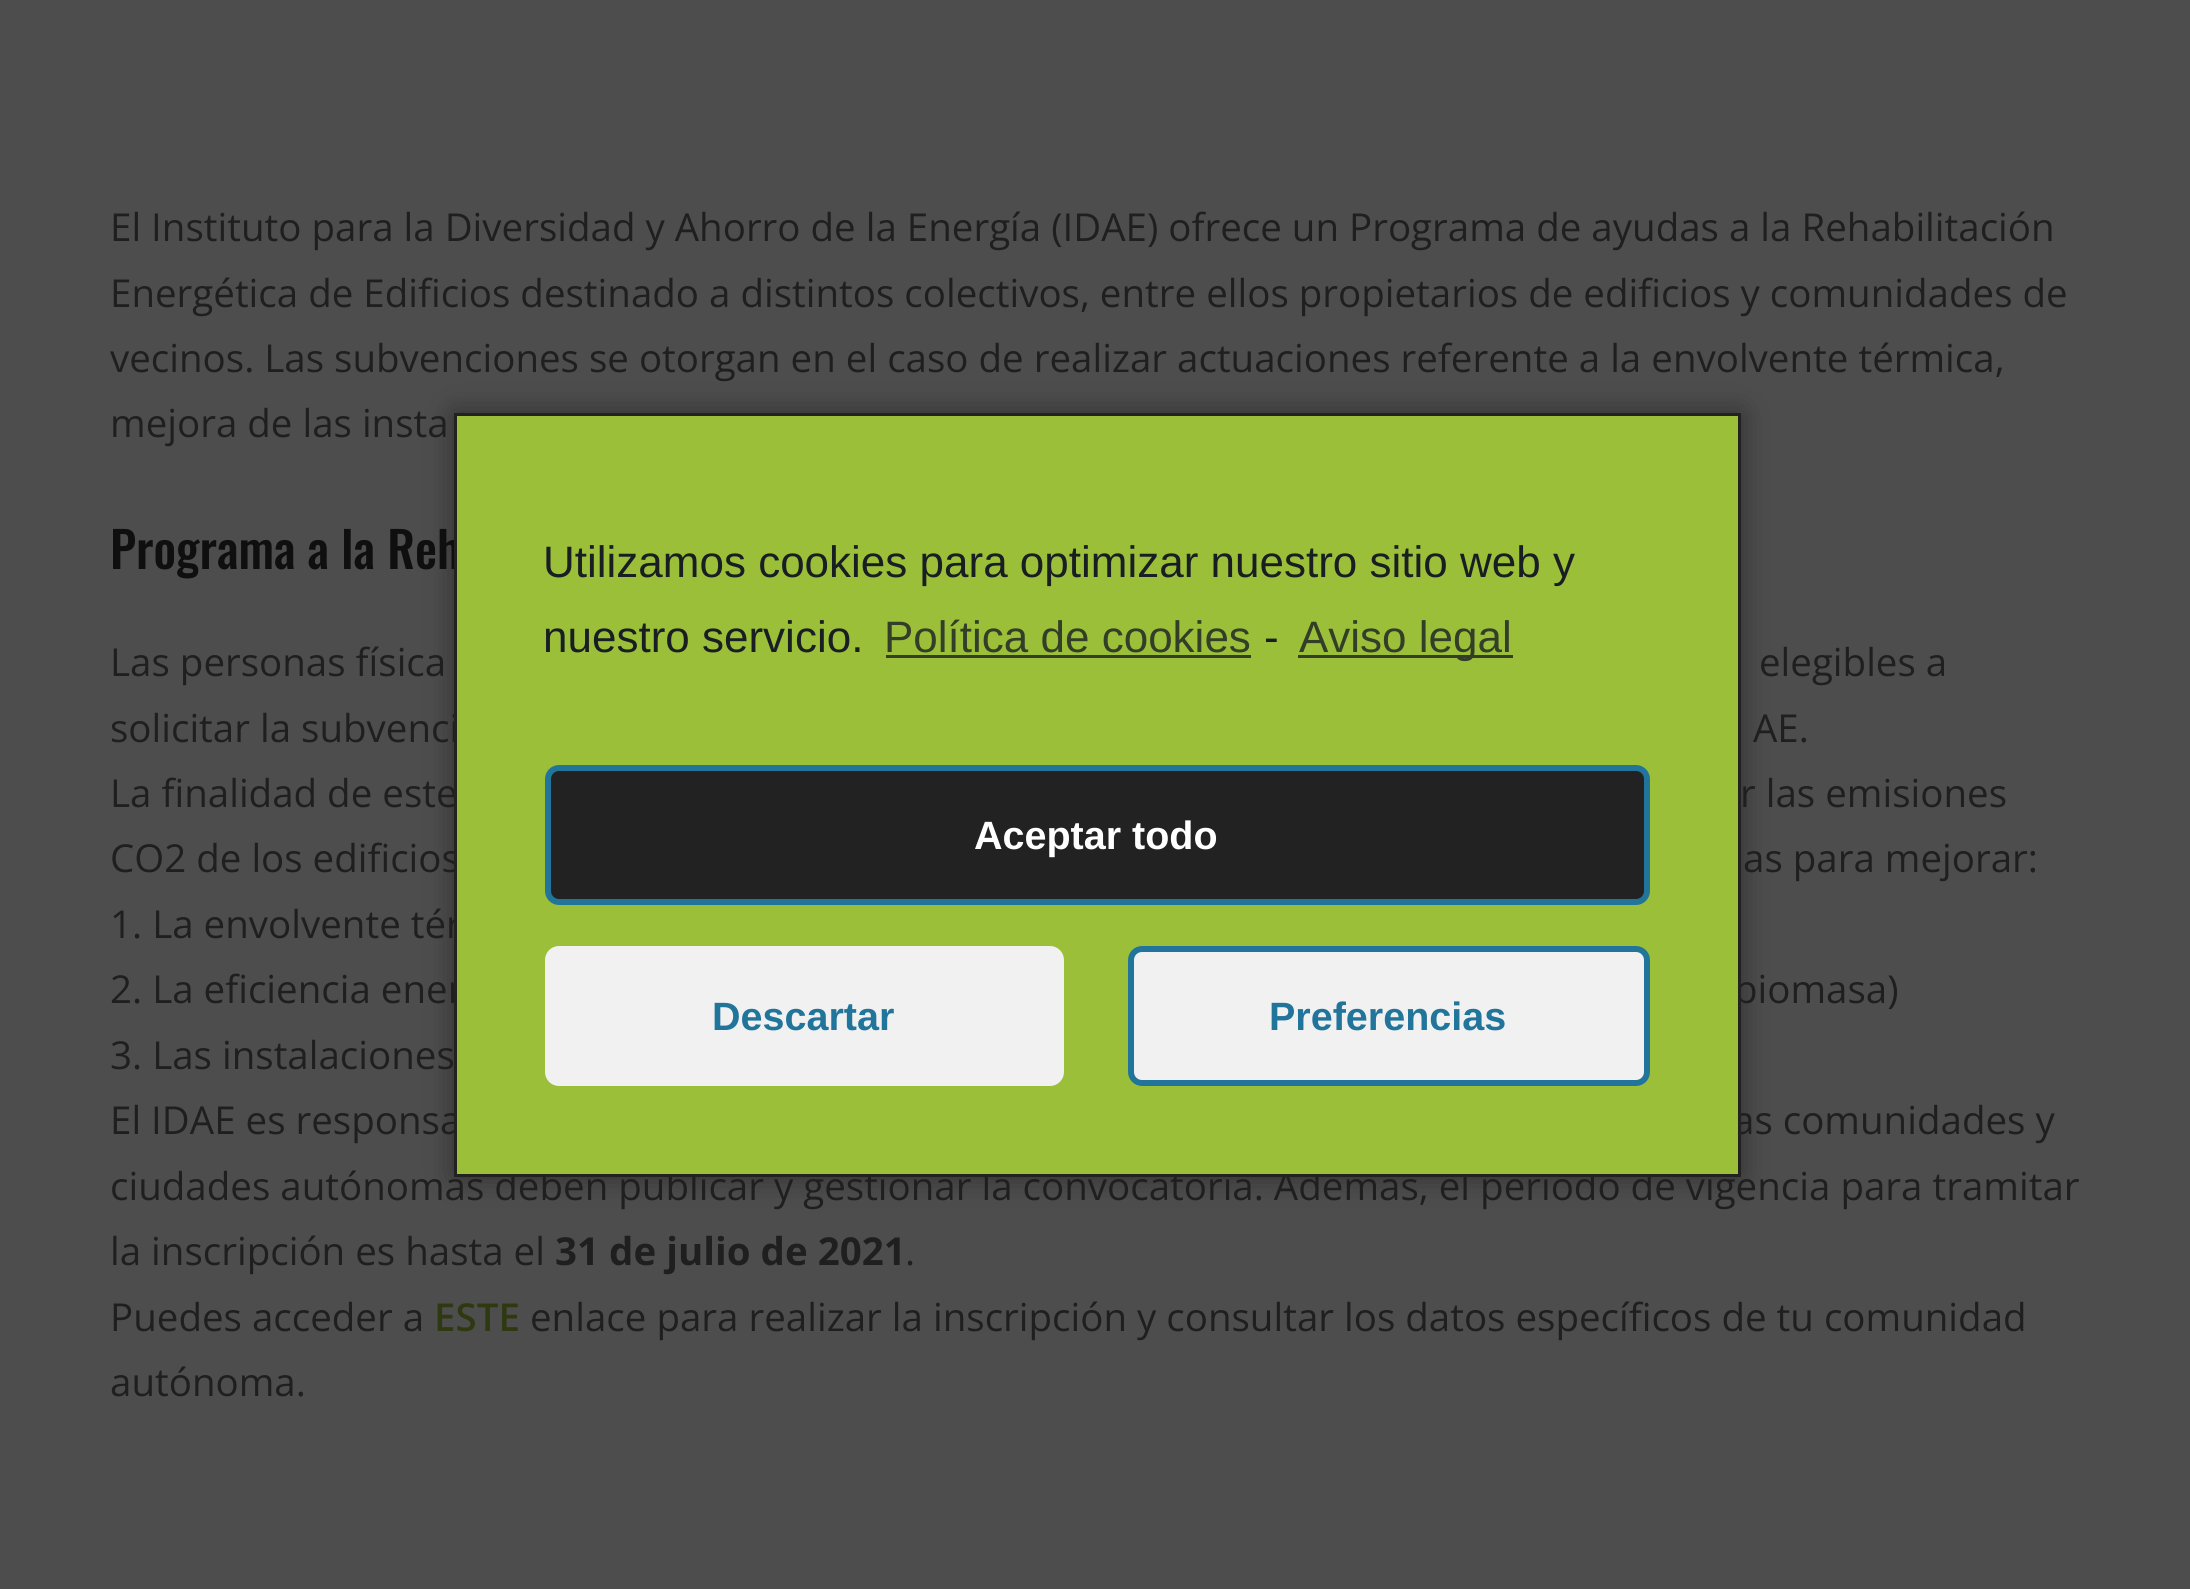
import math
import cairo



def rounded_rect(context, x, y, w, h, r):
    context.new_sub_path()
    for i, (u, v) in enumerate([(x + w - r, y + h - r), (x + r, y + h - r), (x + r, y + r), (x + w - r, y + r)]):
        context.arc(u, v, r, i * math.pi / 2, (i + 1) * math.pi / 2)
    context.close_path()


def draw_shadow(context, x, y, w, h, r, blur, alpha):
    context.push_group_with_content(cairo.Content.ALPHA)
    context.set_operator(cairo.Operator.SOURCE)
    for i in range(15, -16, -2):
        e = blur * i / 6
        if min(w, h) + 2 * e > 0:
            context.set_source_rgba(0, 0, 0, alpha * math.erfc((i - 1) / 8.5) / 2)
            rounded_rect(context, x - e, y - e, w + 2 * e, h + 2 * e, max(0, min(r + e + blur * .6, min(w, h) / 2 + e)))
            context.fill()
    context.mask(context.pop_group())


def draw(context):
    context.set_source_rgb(77 / 255, 77 / 255, 77 / 255)
    context.paint()
    context.set_source_rgb(0, 0, 0)
    draw_shadow(context, 454, 413, 1287, 764, 0, 14, 0.4)
    context.select_font_face("Open Sans")
    context.set_font_size(38.5)
    context.set_source_rgb(31 / 255, 31 / 255, 31 / 255)
    context.move_to(110, 241)
    context.show_text("El Instituto para la Diversidad y Ahorro de la Energía (IDAE) ofrece un Programa de ayudas a la Rehabilitación")
    context.move_to(110, 307)
    context.show_text("Energética de Edificios destinado a distintos colectivos, entre ellos propietarios de edificios y comunidades de")
    context.move_to(110, 372)
    context.show_text("vecinos. Las subvenciones se otorgan en el caso de realizar actuaciones referente a la envolvente térmica,")
    context.move_to(110, 437)
    context.show_text("mejora de las insta")
    context.select_font_face("Oswald Medium")
    context.set_font_size(49.5)
    context.set_source_rgb(15 / 255, 15 / 255, 15 / 255)
    context.move_to(110, 569)
    context.show_text("Programa a la Reh")
    context.select_font_face("Open Sans")
    context.set_font_size(38.5)
    context.set_source_rgb(31 / 255, 31 / 255, 31 / 255)
    context.move_to(110, 676)
    context.show_text("Las personas física")
    context.move_to(1759, 676)
    context.show_text("elegibles a")
    context.move_to(110, 742)
    context.show_text("solicitar la subvenci")
    context.move_to(1753, 742)
    context.show_text("AE.")
    context.move_to(110, 807)
    context.show_text("La finalidad de este")
    context.move_to(1740, 807)
    context.show_text("r las emisiones")
    context.move_to(110, 872)
    context.show_text("CO2 de los edificios")
    context.move_to(1743, 872)
    context.show_text("as para mejorar:")
    context.move_to(110, 938)
    context.show_text("1. La envolvente tér")
    context.move_to(110, 1003)
    context.show_text("2. La eficiencia ener")
    context.move_to(1734, 1003)
    context.show_text("biomasa)")
    context.move_to(110, 1069)
    context.show_text("3. Las instalaciones")
    context.move_to(110, 1134)
    context.show_text("El IDAE es responsa")
    context.move_to(1733, 1134)
    context.show_text("as comunidades y")
    context.move_to(110, 1200)
    context.show_text("ciudades autónomas deben publicar y gestionar la convocatoria. Además, el periodo de vigencia para tramitar")
    context.move_to(110, 1265)
    context.show_text("la inscripción es hasta el")
    context.select_font_face("Open Sans", cairo.FontSlant.NORMAL, cairo.FontWeight.BOLD)
    context.move_to(555, 1265)
    context.show_text("31 de julio de 2021")
    context.select_font_face("Open Sans")
    context.move_to(905, 1265)
    context.show_text(".")
    context.move_to(110, 1331)
    context.show_text("Puedes acceder a")
    context.select_font_face("Open Sans SemiBold")
    context.set_source_rgb(47 / 255, 57 / 255, 17 / 255)
    context.move_to(434, 1331)
    context.show_text("ESTE")
    context.select_font_face("Open Sans")
    context.set_source_rgb(31 / 255, 31 / 255, 31 / 255)
    context.move_to(530, 1331)
    context.show_text("enlace para realizar la inscripción y consultar los datos específicos de tu comunidad")
    context.move_to(110, 1396)
    context.show_text("autónoma.")
    context.set_source_rgb(156 / 255, 191 / 255, 58 / 255)
    context.rectangle(455.5, 414.5, 1284, 761)
    context.fill_preserve()
    context.set_source_rgb(34 / 255, 34 / 255, 34 / 255)
    context.set_line_width(3)
    context.stroke()
    context.select_font_face("Liberation Sans")
    context.set_font_size(44)
    context.set_source_rgb(25 / 255, 30 / 255, 35 / 255)
    context.move_to(543, 577)
    context.show_text("Utilizamos cookies para optimizar nuestro sitio web y")
    context.move_to(543, 652)
    context.show_text("nuestro servicio.")
    context.set_source_rgb(51 / 255, 62 / 255, 40 / 255)
    context.move_to(884, 652)
    context.show_text("Política de cookies")
    context.rectangle(886, 655, 365, 3)
    context.fill()
    context.set_source_rgb(25 / 255, 30 / 255, 35 / 255)
    context.move_to(1264, 652)
    context.show_text("-")
    context.set_source_rgb(51 / 255, 62 / 255, 40 / 255)
    context.rectangle(1298, 655, 215, 3)
    context.fill()
    context.move_to(1299, 652)
    context.show_text("Aviso legal")
    context.set_source_rgb(34 / 255, 34 / 255, 34 / 255)
    rounded_rect(context, 548, 768, 1099, 134, 11)
    context.fill_preserve()
    context.set_source_rgb(33 / 255, 117 / 255, 155 / 255)
    context.set_line_width(6)
    context.stroke()
    context.select_font_face("Liberation Sans", cairo.FontSlant.NORMAL, cairo.FontWeight.BOLD)
    context.set_font_size(39.5)
    context.set_source_rgb(1, 1, 1)
    context.move_to(974, 849)
    context.show_text("Aceptar todo")
    context.set_source_rgb(241 / 255, 241 / 255, 241 / 255)
    rounded_rect(context, 548, 949, 513, 134, 11)
    context.fill_preserve()
    context.stroke()
    context.set_source_rgb(33 / 255, 117 / 255, 155 / 255)
    context.move_to(712, 1030)
    context.show_text("Descartar")
    context.set_source_rgb(241 / 255, 241 / 255, 241 / 255)
    rounded_rect(context, 1131, 949, 516, 134, 11)
    context.fill_preserve()
    context.set_source_rgb(33 / 255, 117 / 255, 155 / 255)
    context.stroke()
    context.move_to(1269, 1030)
    context.show_text("Preferencias")


surface = cairo.ImageSurface(cairo.Format.RGB24, 2190, 1589)
context = cairo.Context(surface)
options = cairo.FontOptions()
options.set_hint_metrics(cairo.HintMetrics.OFF)
options.set_hint_style(cairo.HintStyle.NONE)
context.set_font_options(options)
context.set_miter_limit(4)
draw(context)
surface.write_to_png("out.png")
